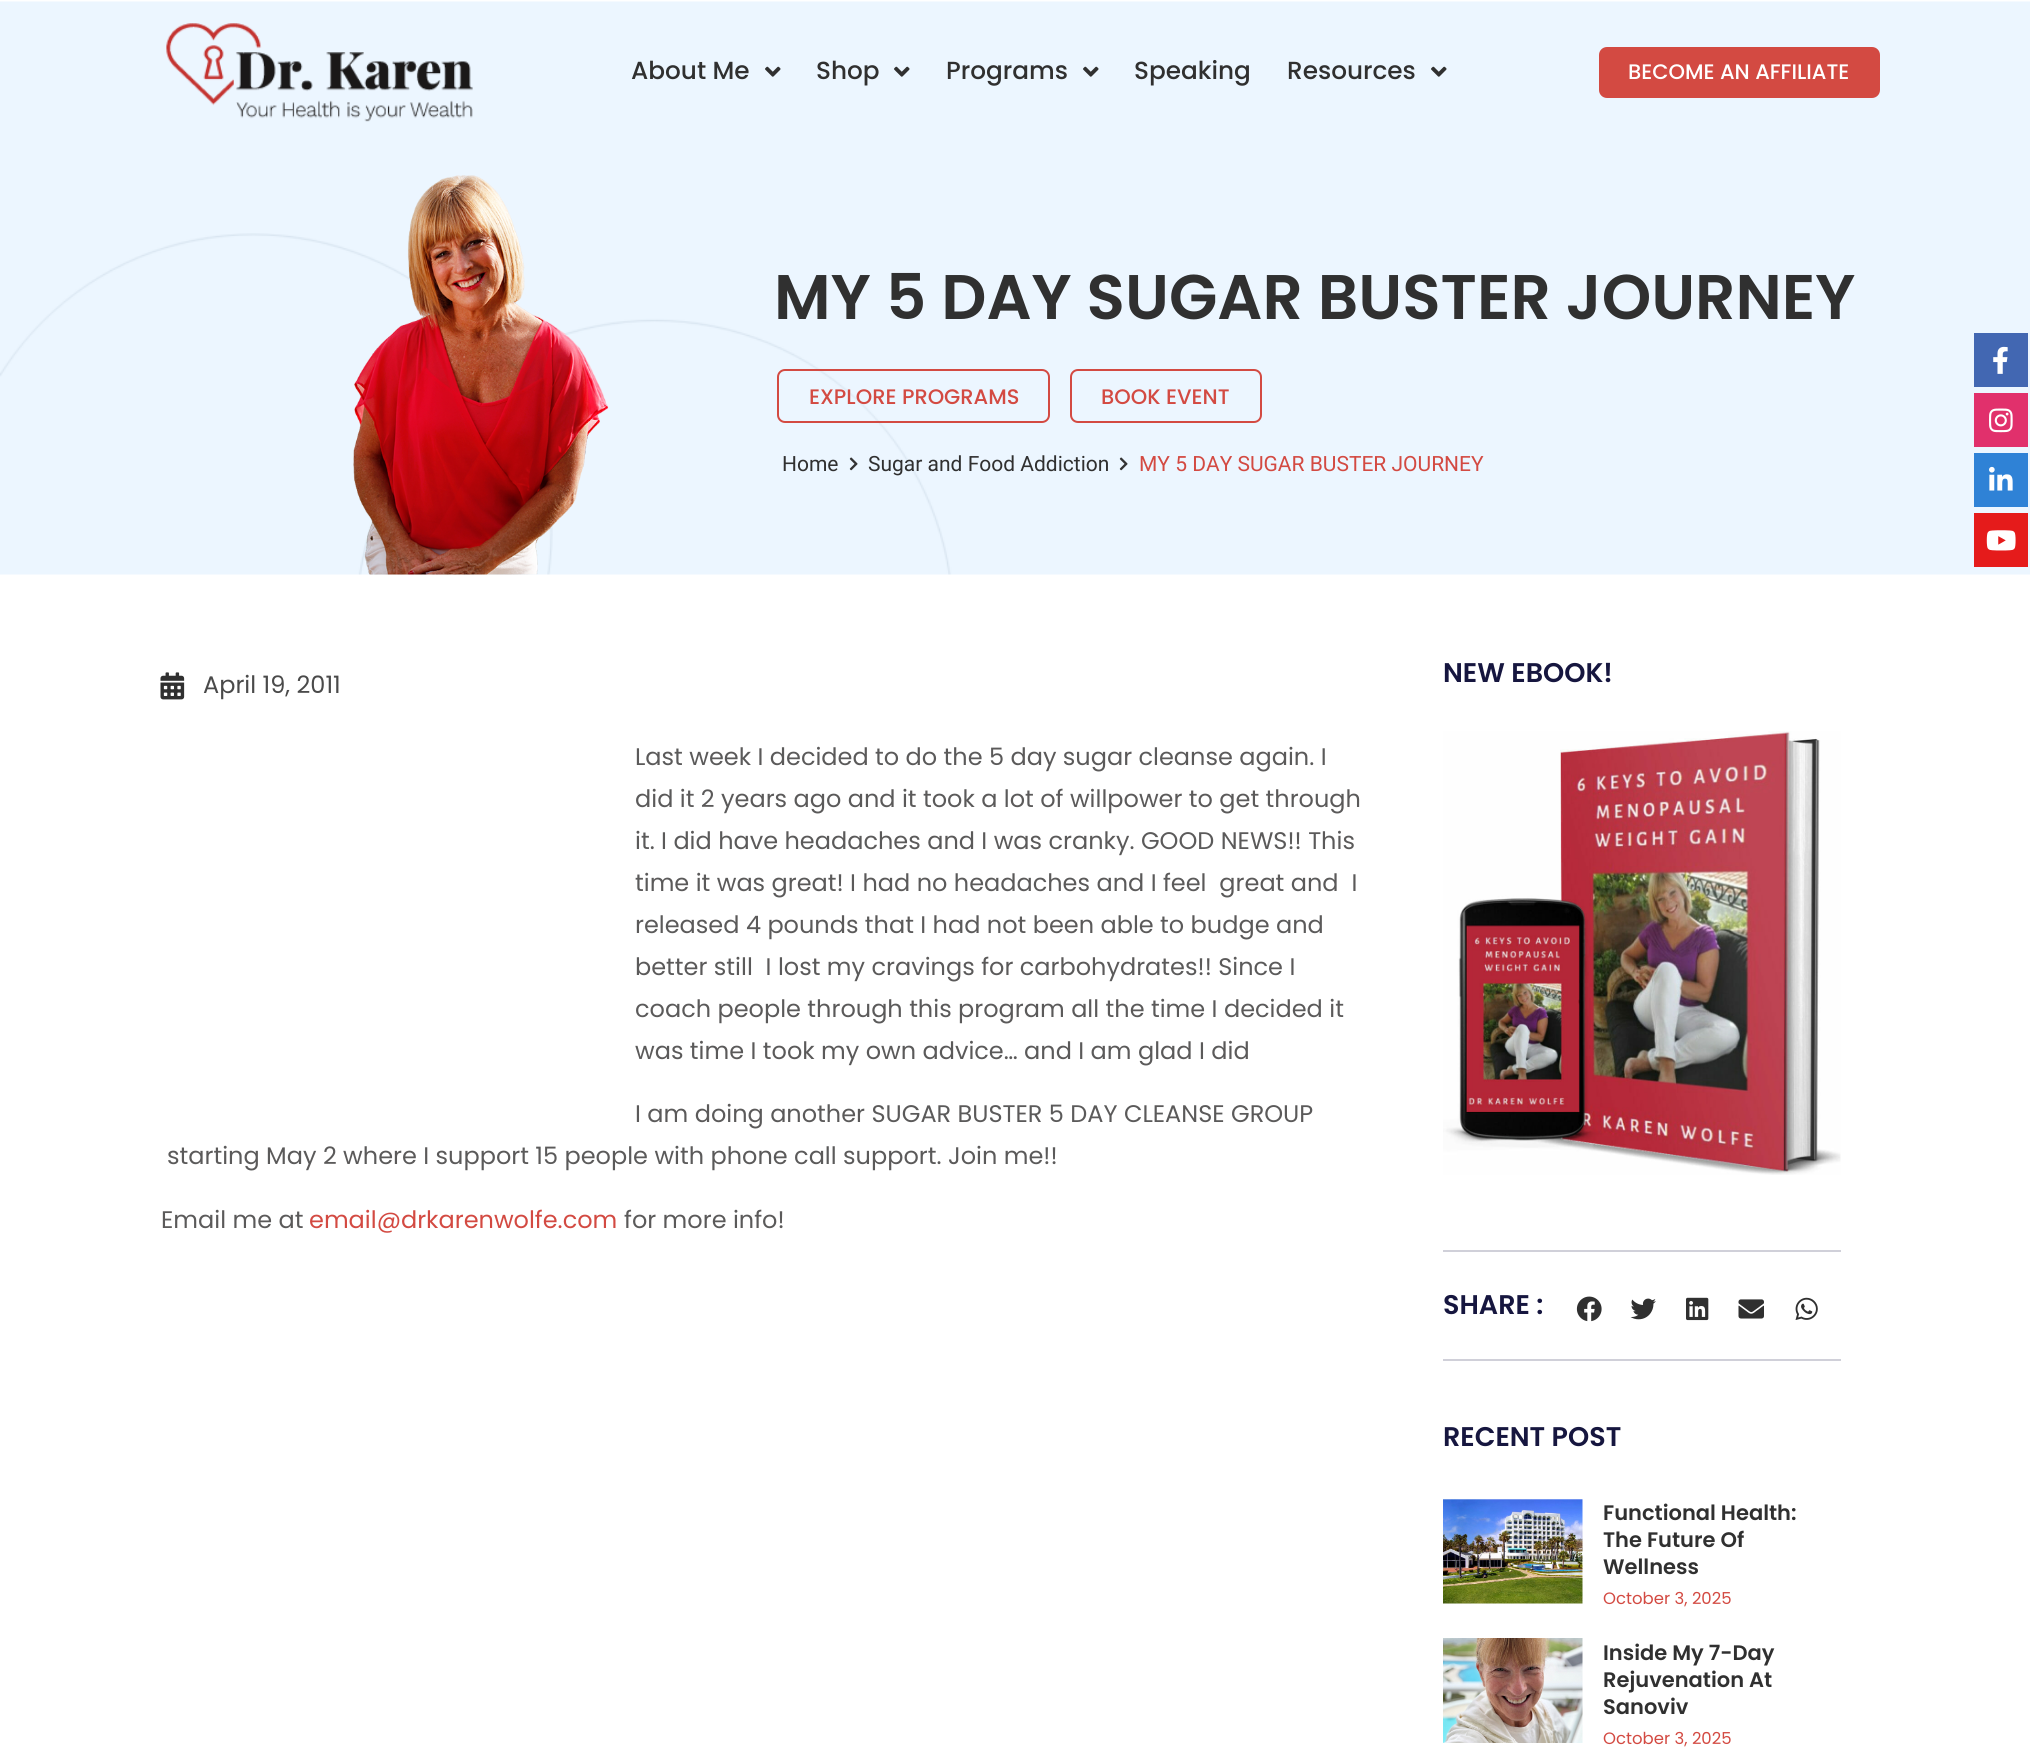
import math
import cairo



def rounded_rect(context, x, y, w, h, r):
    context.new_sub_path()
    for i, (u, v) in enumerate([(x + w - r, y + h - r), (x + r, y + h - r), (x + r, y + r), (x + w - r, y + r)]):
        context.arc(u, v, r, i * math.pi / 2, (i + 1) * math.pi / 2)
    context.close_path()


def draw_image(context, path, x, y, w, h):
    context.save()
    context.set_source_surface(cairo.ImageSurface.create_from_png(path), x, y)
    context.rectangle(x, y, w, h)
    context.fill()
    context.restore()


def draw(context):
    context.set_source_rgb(1, 1, 1)
    context.paint()
    draw_image(context, "images/3.png", 0, 1, 2030, 574)
    draw_image(context, "images/1.png", 166, 23, 307, 99)
    draw_image(context, "images/2.png", 765, 66, 16, 11)
    draw_image(context, "images/2.png", 894, 66, 16, 11)
    draw_image(context, "images/2.png", 1083, 66, 16, 11)
    draw_image(context, "images/2.png", 1431, 66, 16, 11)
    context.set_source_rgb(211 / 255, 74 / 255, 66 / 255)
    rounded_rect(context, 1599, 47, 281, 51, 8)
    context.fill()
    draw_image(context, "images/4.png", 353, 175, 256, 400)
    rounded_rect(context, 778, 370, 271, 52, 7)
    context.stroke()
    rounded_rect(context, 1071, 370, 190, 52, 7)
    context.stroke()
    draw_image(context, "images/5.png", 849, 457, 9, 14)
    draw_image(context, "images/5.png", 1119, 457, 9, 14)
    draw_image(context, "images/6.png", 160, 672, 25, 28)
    draw_image(context, "images/7.png", 1443, 731, 398, 444)
    context.set_source_rgb(208 / 255, 208 / 255, 217 / 255)
    context.rectangle(1443, 1250, 398, 2)
    context.fill()
    context.rectangle(1443, 1359, 398, 2)
    context.fill()
    draw_image(context, "images/8.png", 1576, 1296, 26, 26)
    draw_image(context, "images/9.png", 1630, 1298, 26, 22)
    draw_image(context, "images/10.png", 1686, 1297, 23, 24)
    draw_image(context, "images/11.png", 1738, 1299, 26, 20)
    draw_image(context, "images/12.png", 1795, 1297, 23, 23)
    draw_image(context, "images/13.png", 1443, 1499, 140, 105)
    draw_image(context, "images/14.png", 1443, 1638, 140, 105)
    context.set_source_rgb(66 / 255, 103 / 255, 178 / 255)
    context.rectangle(1974, 333, 54, 54)
    context.fill()
    draw_image(context, "images/15.png", 1993, 346, 15, 28)
    context.set_source_rgb(225 / 255, 48 / 255, 108 / 255)
    context.rectangle(1974, 393, 54, 54)
    context.fill()
    draw_image(context, "images/16.png", 1989, 408, 24, 25)
    context.set_source_rgb(47 / 255, 130 / 255, 214 / 255)
    context.rectangle(1974, 453, 54, 54)
    context.fill()
    draw_image(context, "images/17.png", 1989, 466, 24, 25)
    context.set_source_rgb(229 / 255, 27 / 255, 27 / 255)
    context.rectangle(1974, 513, 54, 54)
    context.fill()
    draw_image(context, "images/18.png", 1986, 530, 30, 21)
    context.select_font_face("Poppins Medium")
    context.set_font_size(24.75)
    context.set_source_rgb(48 / 255, 48 / 255, 48 / 255)
    context.move_to(631, 79)
    context.show_text("About Me")
    context.move_to(816, 79)
    context.show_text("Shop")
    context.move_to(946, 79)
    context.show_text("Programs")
    context.move_to(1134, 79)
    context.show_text("Speaking")
    context.move_to(1287, 79)
    context.show_text("Resources")
    context.set_font_size(21)
    context.set_source_rgb(1, 1, 1)
    context.move_to(1628, 79)
    context.show_text("BECOME AN AFFILIATE")
    context.select_font_face("Poppins SemiBold")
    context.set_font_size(63)
    context.set_source_rgb(48 / 255, 48 / 255, 48 / 255)
    context.move_to(774, 319)
    context.show_text("MY 5 DAY SUGAR BUSTER JOURNEY")
    context.select_font_face("Poppins Medium")
    context.set_font_size(21)
    context.set_source_rgb(211 / 255, 74 / 255, 66 / 255)
    context.move_to(809, 404)
    context.show_text("EXPLORE PROGRAMS")
    context.move_to(1101, 404)
    context.show_text("BOOK EVENT")
    context.select_font_face("Roboto")
    context.set_source_rgb(48 / 255, 48 / 255, 48 / 255)
    context.move_to(782, 471)
    context.show_text("Home")
    context.move_to(868, 471)
    context.show_text("Sugar and Food Addiction")
    context.set_source_rgb(211 / 255, 74 / 255, 66 / 255)
    context.move_to(1139, 471)
    context.show_text("MY 5 DAY SUGAR BUSTER JOURNEY")
    context.select_font_face("Poppins")
    context.set_font_size(24)
    context.set_source_rgb(74 / 255, 74 / 255, 74 / 255)
    context.move_to(203, 693)
    context.show_text("April 19, 2011")
    context.set_source_rgb(91 / 255, 90 / 255, 90 / 255)
    context.move_to(635, 765)
    context.show_text("Last week I decided to do the 5 day sugar cleanse again. I")
    context.move_to(635, 807)
    context.show_text("did it 2 years ago and it took a lot of willpower to get through")
    context.move_to(635, 849)
    context.show_text("it. I did have headaches and I was cranky. GOOD NEWS!! This")
    context.move_to(635, 891)
    context.show_text("time it was great! I had no headaches and I feel  great and  I")
    context.move_to(635, 933)
    context.show_text("released 4 pounds that I had not been able to budge and")
    context.move_to(635, 975)
    context.show_text("better still  I lost my cravings for carbohydrates!! Since I")
    context.move_to(635, 1017)
    context.show_text("coach people through this program all the time I decided it")
    context.move_to(635, 1059)
    context.show_text("was time I took my own advice… and I am glad I did")
    context.move_to(635, 1122)
    context.show_text("I am doing another SUGAR BUSTER 5 DAY CLEANSE GROUP")
    context.move_to(167, 1164)
    context.show_text("starting May 2 where I support 15 people with phone call support. Join me!!")
    context.move_to(161, 1228)
    context.show_text("Email me at")
    context.set_source_rgb(211 / 255, 74 / 255, 66 / 255)
    context.move_to(309, 1228)
    context.show_text("email@drkarenwolfe.com")
    context.set_source_rgb(91 / 255, 90 / 255, 90 / 255)
    context.move_to(624, 1228)
    context.show_text("for more info!")
    context.select_font_face("Poppins SemiBold")
    context.set_font_size(27)
    context.set_source_rgb(22 / 255, 22 / 255, 63 / 255)
    context.move_to(1443, 682)
    context.show_text("NEW EBOOK!")
    context.move_to(1443, 1314)
    context.show_text("SHARE :")
    context.move_to(1443, 1446)
    context.show_text("RECENT POST")
    context.set_font_size(21)
    context.set_source_rgb(48 / 255, 48 / 255, 48 / 255)
    context.move_to(1603, 1520)
    context.show_text("Functional Health:")
    context.move_to(1603, 1547)
    context.show_text("The Future Of")
    context.move_to(1603, 1574)
    context.show_text("Wellness")
    context.select_font_face("Poppins")
    context.set_font_size(16.5)
    context.set_source_rgb(211 / 255, 74 / 255, 66 / 255)
    context.move_to(1603, 1604)
    context.show_text("October 3, 2025")
    context.select_font_face("Poppins SemiBold")
    context.set_font_size(21)
    context.set_source_rgb(48 / 255, 48 / 255, 48 / 255)
    context.move_to(1603, 1660)
    context.show_text("Inside My 7-Day")
    context.move_to(1603, 1687)
    context.show_text("Rejuvenation At")
    context.move_to(1603, 1714)
    context.show_text("Sanoviv")
    context.select_font_face("Poppins")
    context.set_font_size(16.5)
    context.set_source_rgb(211 / 255, 74 / 255, 66 / 255)
    context.move_to(1603, 1744)
    context.show_text("October 3, 2025")


surface = cairo.ImageSurface(cairo.Format.RGB24, 2030, 1760)
context = cairo.Context(surface)
options = cairo.FontOptions()
options.set_hint_metrics(cairo.HintMetrics.OFF)
options.set_hint_style(cairo.HintStyle.NONE)
context.set_font_options(options)
context.set_miter_limit(4)
draw(context)
surface.write_to_png("out.png")
